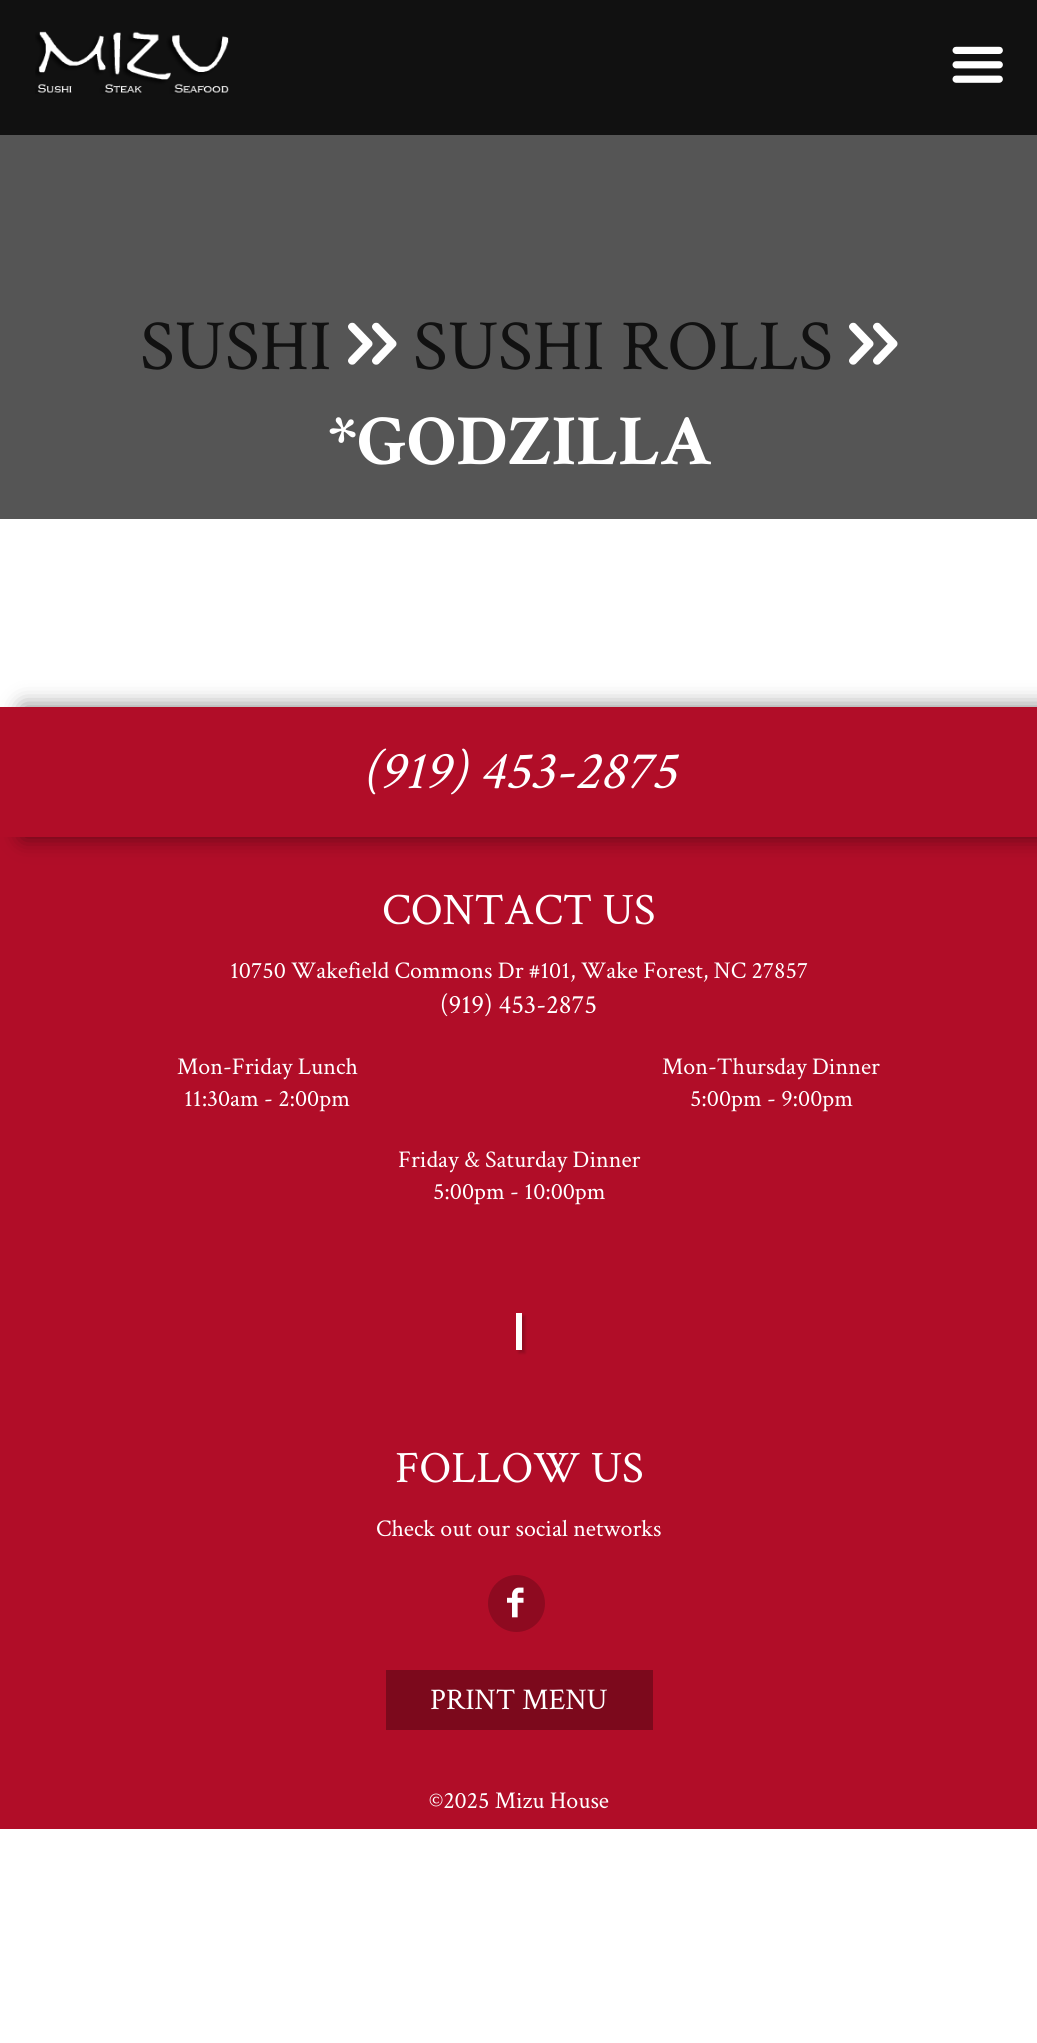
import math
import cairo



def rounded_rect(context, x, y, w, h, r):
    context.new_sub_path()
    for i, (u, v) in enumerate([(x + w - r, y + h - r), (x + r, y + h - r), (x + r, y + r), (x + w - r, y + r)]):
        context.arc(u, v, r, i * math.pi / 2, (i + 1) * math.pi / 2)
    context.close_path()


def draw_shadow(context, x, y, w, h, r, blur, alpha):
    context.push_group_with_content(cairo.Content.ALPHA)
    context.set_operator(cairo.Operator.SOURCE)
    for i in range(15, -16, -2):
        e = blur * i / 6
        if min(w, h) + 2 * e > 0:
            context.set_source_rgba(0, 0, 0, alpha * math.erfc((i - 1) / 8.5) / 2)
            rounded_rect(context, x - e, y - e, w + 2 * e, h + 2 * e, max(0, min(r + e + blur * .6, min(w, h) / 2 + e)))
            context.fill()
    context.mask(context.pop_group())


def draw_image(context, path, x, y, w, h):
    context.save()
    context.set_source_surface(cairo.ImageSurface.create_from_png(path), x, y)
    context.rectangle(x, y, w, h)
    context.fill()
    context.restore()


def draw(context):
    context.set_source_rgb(1, 1, 1)
    context.paint()
    context.set_source_rgb(17 / 255, 17 / 255, 17 / 255)
    context.rectangle(0, 0, 1037, 135)
    context.fill()
    draw_image(context, "images/1.png", 35, 31, 194, 63)
    draw_image(context, "images/2.png", 952, 46, 51, 37)
    context.set_source_rgb(85 / 255, 85 / 255, 85 / 255)
    context.rectangle(0, 135, 1037, 384)
    context.fill()
    draw_image(context, "images/3.png", 348, 322, 25, 43)
    draw_image(context, "images/4.png", 372, 322, 25, 43)
    draw_image(context, "images/3.png", 849, 322, 25, 43)
    draw_image(context, "images/4.png", 873, 322, 25, 43)
    context.set_source_rgb(177 / 255, 13 / 255, 40 / 255)
    context.rectangle(0, 707, 1037, 1122)
    context.fill()
    context.save()
    context.set_fill_rule(cairo.FillRule.EVEN_ODD)
    context.new_path()
    context.move_to(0, 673)
    context.line_to(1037, 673)
    context.line_to(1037, 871)
    context.line_to(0, 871)
    context.close_path()
    context.move_to(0, 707)
    context.line_to(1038, 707)
    context.line_to(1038, 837)
    context.line_to(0, 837)
    context.close_path()
    context.clip()
    context.set_source_rgb(0, 0, 0)
    draw_shadow(context, 23, 707, 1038, 130, 0, 11, 0.5)
    context.restore()
    context.set_source_rgb(0, 0, 0)
    draw_shadow(context, 519, 1316, 6, 37, 0, 1.5, 0.2)
    context.set_source_rgb(1, 1, 1)
    context.rectangle(516, 1313, 6, 37)
    context.fill()
    context.set_source_rgb(142 / 255, 10 / 255, 32 / 255)
    context.arc(516.5, 1603.5, 28.5, 0, 2 * math.pi)
    context.fill()
    draw_image(context, "images/5.png", 507, 1587, 17, 31)
    context.set_source_rgb(124 / 255, 9 / 255, 28 / 255)
    context.rectangle(386, 1670, 267, 60)
    context.fill()
    context.select_font_face("Crimson Text")
    context.set_font_size(72)
    context.set_source_rgb(17 / 255, 17 / 255, 17 / 255)
    context.move_to(140, 369)
    context.show_text("SUSHI")
    context.move_to(413, 369)
    context.show_text("SUSHI ROLLS")
    context.select_font_face("Crimson Text", cairo.FontSlant.NORMAL, cairo.FontWeight.BOLD)
    context.set_source_rgb(1, 1, 1)
    context.move_to(328, 464)
    context.show_text("*GODZILLA")
    context.select_font_face("Crimson Text", cairo.FontSlant.ITALIC)
    context.set_font_size(54)
    context.move_to(362, 788)
    context.show_text("(919) 453-2875")
    context.select_font_face("Crimson Text")
    context.set_font_size(45)
    context.move_to(382, 924)
    context.show_text("CONTACT US")
    context.set_font_size(24)
    context.move_to(230, 978)
    context.show_text("10750 Wakefield Commons Dr #101, Wake Forest, NC 27857")
    context.set_font_size(27)
    context.move_to(440, 1013)
    context.show_text("(919) 453-2875")
    context.set_font_size(24)
    context.move_to(177, 1074)
    context.show_text("Mon-Friday Lunch")
    context.move_to(184, 1106)
    context.show_text("11:30am - 2:00pm")
    context.move_to(662, 1074)
    context.show_text("Mon-Thursday Dinner")
    context.move_to(690, 1106)
    context.show_text("5:00pm - 9:00pm")
    context.move_to(398, 1167)
    context.show_text("Friday & Saturday Dinner")
    context.move_to(433, 1199)
    context.show_text("5:00pm - 10:00pm")
    context.set_font_size(45)
    context.move_to(395, 1482)
    context.show_text("FOLLOW US")
    context.set_font_size(24)
    context.move_to(376, 1536)
    context.show_text("Check out our social networks")
    context.set_font_size(30)
    context.move_to(430, 1709)
    context.show_text("PRINT MENU")
    context.set_font_size(24)
    context.move_to(429, 1808)
    context.show_text("©2025 Mizu House")


surface = cairo.ImageSurface(cairo.Format.RGB24, 1037, 2043)
context = cairo.Context(surface)
options = cairo.FontOptions()
options.set_hint_metrics(cairo.HintMetrics.OFF)
options.set_hint_style(cairo.HintStyle.NONE)
context.set_font_options(options)
context.set_miter_limit(4)
draw(context)
surface.write_to_png("out.png")
